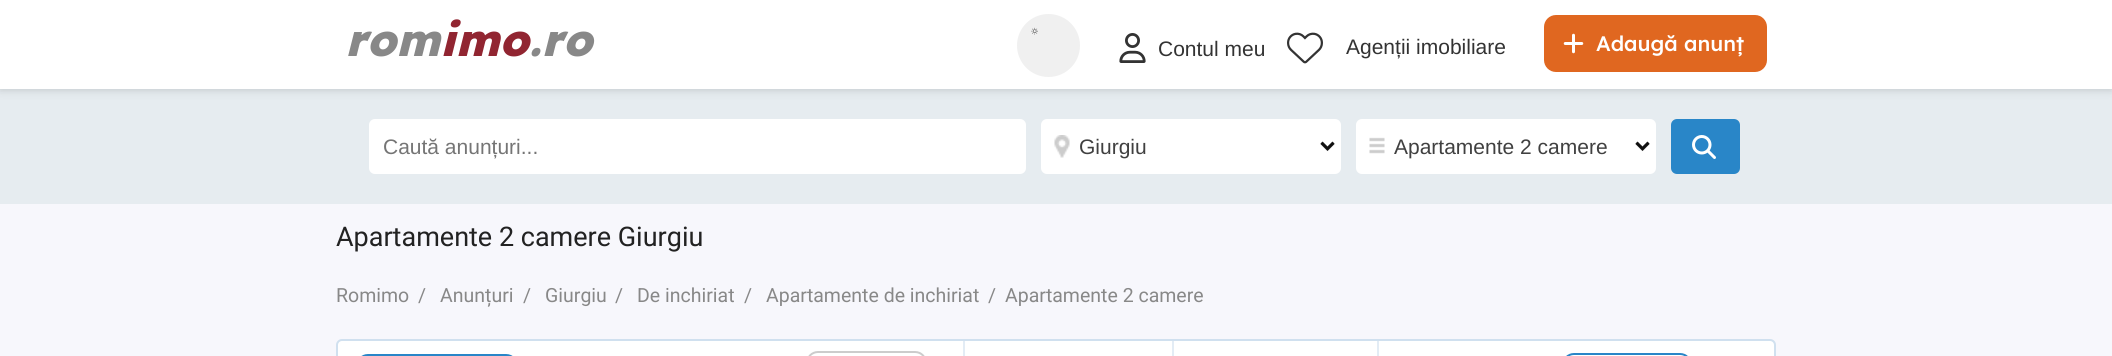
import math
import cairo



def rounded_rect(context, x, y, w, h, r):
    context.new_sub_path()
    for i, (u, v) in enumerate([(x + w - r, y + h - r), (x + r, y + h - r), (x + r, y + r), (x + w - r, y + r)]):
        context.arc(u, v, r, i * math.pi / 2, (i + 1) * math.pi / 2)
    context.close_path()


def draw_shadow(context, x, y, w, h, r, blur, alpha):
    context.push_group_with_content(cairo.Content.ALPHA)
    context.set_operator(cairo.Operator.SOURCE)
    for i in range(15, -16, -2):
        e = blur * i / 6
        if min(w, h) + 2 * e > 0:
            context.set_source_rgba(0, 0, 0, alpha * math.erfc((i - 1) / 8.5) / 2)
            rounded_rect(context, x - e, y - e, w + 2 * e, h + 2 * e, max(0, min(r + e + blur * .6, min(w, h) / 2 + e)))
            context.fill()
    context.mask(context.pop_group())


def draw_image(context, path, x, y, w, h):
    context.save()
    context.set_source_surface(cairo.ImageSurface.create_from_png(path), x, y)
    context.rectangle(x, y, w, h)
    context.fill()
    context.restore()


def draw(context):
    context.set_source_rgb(247 / 255, 247 / 255, 252 / 255)
    context.paint()
    context.set_source_rgb(230 / 255, 236 / 255, 240 / 255)
    context.rectangle(0, 89, 2112, 115)
    context.fill()
    context.set_source_rgb(32 / 255, 33 / 255, 36 / 255)
    draw_shadow(context, 0, -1, 2112, 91, 0, 4.5, 0.18)
    context.set_source_rgb(1, 1, 1)
    context.rectangle(0, 0, 2112, 89)
    context.fill()
    context.set_source_rgb(240 / 255, 240 / 255, 240 / 255)
    context.arc(1048.5, 45.5, 31.5, 0, 2 * math.pi)
    context.fill()
    draw_image(context, "images/1.png", 1031, 27, 7, 8)
    draw_image(context, "images/2.png", 1119, 33, 27, 30)
    draw_image(context, "images/3.png", 1287, 32, 36, 32)
    context.set_source_rgb(224 / 255, 103 / 255, 32 / 255)
    rounded_rect(context, 1544, 15, 223, 57, 12)
    context.fill()
    draw_image(context, "images/4.png", 1563, 33, 21, 21)
    context.set_source_rgb(1, 1, 1)
    rounded_rect(context, 369, 119, 657, 55, 6)
    context.fill()
    rounded_rect(context, 1041, 119, 300, 55, 6)
    context.fill()
    draw_image(context, "images/5.png", 1054, 135, 281, 23)
    context.new_path()
    context.move_to(1321.5, 143)
    context.line_to(1327.5, 149)
    context.line_to(1333.5, 143)
    context.set_source_rgba(0, 0, 0, 0.75)
    context.set_line_width(3)
    context.stroke()
    context.set_source_rgb(1, 1, 1)
    rounded_rect(context, 1356, 119, 300, 55, 6)
    context.fill()
    draw_image(context, "images/6.png", 1369, 137, 281, 17)
    context.new_path()
    context.move_to(1636.5, 143)
    context.line_to(1642.5, 149)
    context.line_to(1648.5, 143)
    context.set_source_rgba(0, 0, 0, 0.75)
    context.stroke()
    context.set_source_rgb(41 / 255, 134 / 255, 200 / 255)
    rounded_rect(context, 1671, 119, 69, 55, 6)
    context.fill()
    draw_image(context, "images/7.png", 1692, 135, 24, 24)
    context.set_source_rgb(1, 1, 1)
    rounded_rect(context, 337, 340, 1438, 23, 5)
    context.fill_preserve()
    context.set_source_rgb(208 / 255, 224 / 255, 239 / 255)
    context.set_line_width(2)
    context.stroke()
    context.set_source_rgb(227 / 255, 236 / 255, 245 / 255)
    context.rectangle(963, 341, 2, 15)
    context.fill()
    context.rectangle(1172, 341, 2, 15)
    context.fill()
    context.rectangle(1377, 341, 2, 15)
    context.fill()
    rounded_rect(context, 357, 355, 160, 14, 11)
    context.set_source_rgb(41 / 255, 134 / 255, 200 / 255)
    context.stroke()
    rounded_rect(context, 807, 352, 119, 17, 11)
    context.set_source_rgb(204 / 255, 204 / 255, 204 / 255)
    context.stroke()
    rounded_rect(context, 1563, 354, 128, 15, 11)
    context.set_source_rgb(41 / 255, 134 / 255, 200 / 255)
    context.stroke()
    context.select_font_face("Lexend ExtraBold", cairo.FontSlant.ITALIC)
    context.set_font_size(45)
    context.set_source_rgb(136 / 255, 136 / 255, 136 / 255)
    context.move_to(345, 56)
    context.show_text("rom")
    context.set_source_rgb(145 / 255, 37 / 255, 49 / 255)
    context.move_to(440, 56)
    context.show_text("imo")
    context.set_source_rgb(136 / 255, 136 / 255, 136 / 255)
    context.move_to(529, 56)
    context.show_text(".ro")
    context.select_font_face("Liberation Sans")
    context.set_font_size(21)
    context.set_source_rgb(51 / 255, 51 / 255, 51 / 255)
    context.move_to(1158, 56)
    context.show_text("Contul meu")
    context.move_to(1346, 54)
    context.show_text("Agenții imobiliare")
    context.select_font_face("Lexend Medium")
    context.set_source_rgb(1, 1, 1)
    context.move_to(1596, 51)
    context.show_text("Adaugă anunț")
    context.select_font_face("Liberation Sans")
    context.set_source_rgb(117 / 255, 117 / 255, 117 / 255)
    context.move_to(383, 154)
    context.show_text("Caută anunțuri...")
    context.set_source_rgb(64 / 255, 64 / 255, 64 / 255)
    context.move_to(1079, 154)
    context.show_text("Giurgiu")
    context.move_to(1394, 154)
    context.show_text("Apartamente 2 camere")
    context.select_font_face("Roboto")
    context.set_font_size(27)
    context.set_source_rgb(34 / 255, 34 / 255, 34 / 255)
    context.move_to(336, 246)
    context.show_text("Apartamente 2 camere Giurgiu")
    context.set_font_size(19.5)
    context.set_source_rgb(136 / 255, 136 / 255, 136 / 255)
    context.move_to(336, 302)
    context.show_text("Romimo")
    context.move_to(418, 302)
    context.show_text("/")
    context.move_to(440, 302)
    context.show_text("Anunțuri")
    context.move_to(523, 302)
    context.show_text("/")
    context.move_to(545, 302)
    context.show_text("Giurgiu")
    context.move_to(615, 302)
    context.show_text("/")
    context.move_to(637, 302)
    context.show_text("De inchiriat")
    context.move_to(744, 302)
    context.show_text("/")
    context.move_to(766, 302)
    context.show_text("Apartamente de inchiriat")
    context.move_to(988, 302)
    context.show_text("/")
    context.move_to(1005, 302)
    context.show_text("Apartamente 2 camere")


surface = cairo.ImageSurface(cairo.Format.RGB24, 2112, 356)
context = cairo.Context(surface)
options = cairo.FontOptions()
options.set_hint_metrics(cairo.HintMetrics.OFF)
options.set_hint_style(cairo.HintStyle.NONE)
context.set_font_options(options)
context.set_miter_limit(4)
draw(context)
surface.write_to_png("out.png")
